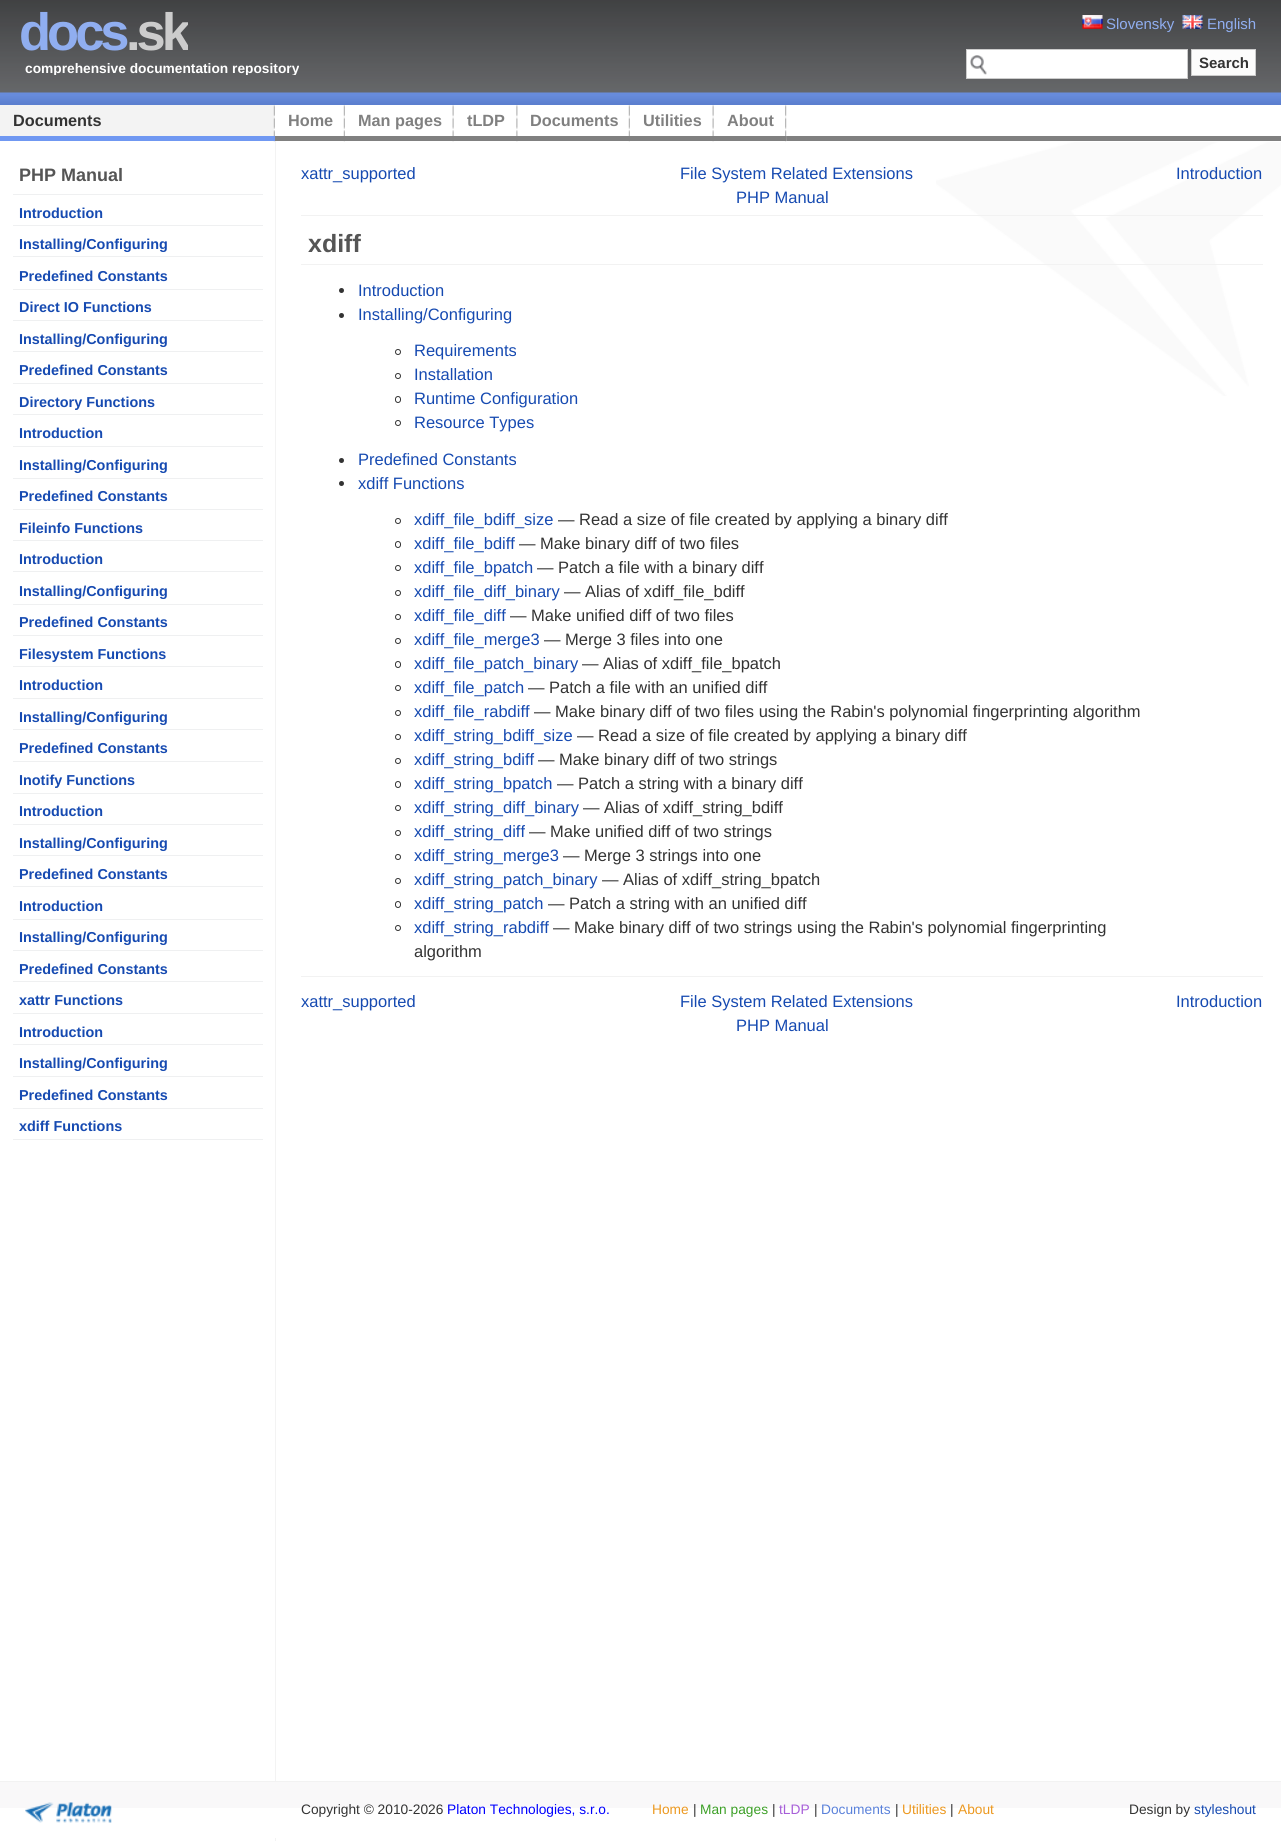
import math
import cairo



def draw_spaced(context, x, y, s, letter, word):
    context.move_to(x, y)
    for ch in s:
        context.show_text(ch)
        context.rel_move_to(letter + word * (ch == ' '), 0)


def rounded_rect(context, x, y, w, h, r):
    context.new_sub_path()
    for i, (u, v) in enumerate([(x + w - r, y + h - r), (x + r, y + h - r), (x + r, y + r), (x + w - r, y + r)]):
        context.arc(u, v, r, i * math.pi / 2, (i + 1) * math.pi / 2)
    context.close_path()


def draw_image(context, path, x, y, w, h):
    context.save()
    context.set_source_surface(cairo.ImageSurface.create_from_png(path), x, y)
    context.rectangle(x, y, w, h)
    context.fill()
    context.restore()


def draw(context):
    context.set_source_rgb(1, 1, 1)
    context.paint()
    context.set_source_rgb(243 / 255, 243 / 255, 243 / 255)
    context.rectangle(275, 141, 1, 1700)
    context.fill()
    draw_image(context, "images/1.png", 0, 0, 1281, 105)
    draw_image(context, "images/2.png", 1082, 15, 21, 14)
    draw_image(context, "images/3.png", 1182, 15, 21, 14)
    context.set_source_rgb(1, 1, 1)
    context.rectangle(967, 50, 220, 28)
    context.fill()
    draw_image(context, "images/4.png", 970, 55, 17, 20)
    context.rectangle(966.5, 49.5, 221, 29)
    context.set_source_rgb(204 / 255, 204 / 255, 204 / 255)
    context.set_line_width(1)
    context.stroke()
    context.set_source_rgb(252 / 255, 252 / 255, 252 / 255)
    context.rectangle(1191.5, 49.5, 64, 26)
    context.fill_preserve()
    context.set_source_rgb(204 / 255, 204 / 255, 204 / 255)
    context.stroke()
    context.set_source_rgb(128 / 255, 128 / 255, 128 / 255)
    context.rectangle(786, 136, 495, 5)
    context.fill()
    context.set_source_rgb(243 / 255, 243 / 255, 243 / 255)
    context.rectangle(0, 105, 274, 31)
    context.fill()
    draw_image(context, "images/5.png", 273, 105, 2, 37)
    context.set_source_rgb(112 / 255, 152 / 255, 242 / 255)
    context.rectangle(0, 136, 275, 5)
    context.fill()
    draw_image(context, "images/6.png", 343, 105, 2, 37)
    context.set_source_rgb(128 / 255, 128 / 255, 128 / 255)
    context.rectangle(275, 136, 70, 5)
    context.fill()
    draw_image(context, "images/7.png", 452, 105, 2, 37)
    context.rectangle(345, 136, 109, 5)
    context.fill()
    draw_image(context, "images/8.png", 516, 105, 2, 37)
    context.rectangle(454, 136, 64, 5)
    context.fill()
    draw_image(context, "images/6.png", 628, 105, 2, 37)
    context.rectangle(518, 136, 112, 5)
    context.fill()
    draw_image(context, "images/7.png", 712, 105, 2, 37)
    context.rectangle(630, 136, 84, 5)
    context.fill()
    draw_image(context, "images/9.png", 785, 105, 2, 37)
    context.rectangle(714, 136, 72, 5)
    context.fill()
    draw_image(context, "images/10.png", 936, 142, 345, 254)
    context.set_source_rgb(239 / 255, 240 / 255, 241 / 255)
    context.rectangle(13, 194, 250, 1)
    context.fill()
    context.rectangle(13, 225, 250, 1)
    context.fill()
    context.rectangle(13, 256, 250, 1)
    context.fill()
    context.rectangle(13, 289, 250, 1)
    context.fill()
    context.rectangle(13, 320, 250, 1)
    context.fill()
    context.rectangle(13, 351, 250, 1)
    context.fill()
    context.rectangle(13, 383, 250, 1)
    context.fill()
    context.rectangle(13, 414, 250, 1)
    context.fill()
    context.rectangle(13, 446, 250, 1)
    context.fill()
    context.rectangle(13, 478, 250, 1)
    context.fill()
    context.rectangle(13, 509, 250, 1)
    context.fill()
    context.rectangle(13, 540, 250, 1)
    context.fill()
    context.rectangle(13, 571, 250, 1)
    context.fill()
    context.rectangle(13, 604, 250, 1)
    context.fill()
    context.rectangle(13, 635, 250, 1)
    context.fill()
    context.rectangle(13, 666, 250, 1)
    context.fill()
    context.rectangle(13, 698, 250, 1)
    context.fill()
    context.rectangle(13, 729, 250, 1)
    context.fill()
    context.rectangle(13, 761, 250, 1)
    context.fill()
    context.rectangle(13, 793, 250, 1)
    context.fill()
    context.rectangle(13, 824, 250, 1)
    context.fill()
    context.rectangle(13, 855, 250, 1)
    context.fill()
    context.rectangle(13, 886, 250, 1)
    context.fill()
    context.rectangle(13, 919, 250, 1)
    context.fill()
    context.rectangle(13, 950, 250, 1)
    context.fill()
    context.rectangle(13, 981, 250, 1)
    context.fill()
    context.rectangle(13, 1013, 250, 1)
    context.fill()
    context.rectangle(13, 1044, 250, 1)
    context.fill()
    context.rectangle(13, 1076, 250, 1)
    context.fill()
    context.rectangle(13, 1108, 250, 1)
    context.fill()
    context.rectangle(13, 1139, 250, 1)
    context.fill()
    context.set_source_rgb(242 / 255, 242 / 255, 242 / 255)
    context.rectangle(301, 215, 962, 1)
    context.fill()
    context.rectangle(301, 264, 962, 1)
    context.fill()
    context.set_source_rgb(51 / 255, 51 / 255, 51 / 255)
    context.arc(341.5, 290.5, 2.5, 0, 2 * math.pi)
    context.fill()
    context.arc(341.5, 315.5, 2.5, 0, 2 * math.pi)
    context.fill()
    context.arc(398, 352, 2.5, 0, 2 * math.pi)
    context.stroke()
    context.arc(398, 376, 2.5, 0, 2 * math.pi)
    context.stroke()
    rounded_rect(context, 395.5, 396.5, 5, 6, 2.5)
    context.stroke()
    context.arc(398, 423, 2.5, 0, 2 * math.pi)
    context.stroke()
    context.arc(341.5, 460.5, 2.5, 0, 2 * math.pi)
    context.fill()
    context.arc(341.5, 483.5, 2.5, 0, 2 * math.pi)
    context.fill()
    context.arc(398, 521, 2.5, 0, 2 * math.pi)
    context.stroke()
    rounded_rect(context, 395.5, 541.5, 5, 6, 2.5)
    context.stroke()
    context.arc(398, 568, 2.5, 0, 2 * math.pi)
    context.stroke()
    context.arc(398, 593, 2.5, 0, 2 * math.pi)
    context.stroke()
    context.arc(398, 617, 2.5, 0, 2 * math.pi)
    context.stroke()
    context.arc(398, 641, 2.5, 0, 2 * math.pi)
    context.stroke()
    rounded_rect(context, 395.5, 661.5, 5, 6, 2.5)
    context.stroke()
    context.arc(398, 688, 2.5, 0, 2 * math.pi)
    context.stroke()
    context.arc(398, 713, 2.5, 0, 2 * math.pi)
    context.stroke()
    context.arc(398, 737, 2.5, 0, 2 * math.pi)
    context.stroke()
    context.arc(398, 761, 2.5, 0, 2 * math.pi)
    context.stroke()
    rounded_rect(context, 395.5, 781.5, 5, 6, 2.5)
    context.stroke()
    context.arc(398, 808, 2.5, 0, 2 * math.pi)
    context.stroke()
    context.arc(398, 833, 2.5, 0, 2 * math.pi)
    context.stroke()
    context.arc(398, 857, 2.5, 0, 2 * math.pi)
    context.stroke()
    context.arc(398, 881, 2.5, 0, 2 * math.pi)
    context.stroke()
    rounded_rect(context, 395.5, 901.5, 5, 6, 2.5)
    context.stroke()
    context.arc(398, 928, 2.5, 0, 2 * math.pi)
    context.stroke()
    context.set_source_rgb(242 / 255, 242 / 255, 242 / 255)
    context.rectangle(301, 976, 962, 1)
    context.fill()
    context.set_source_rgb(1, 1, 1)
    context.rectangle(275, 1808, 1, 30)
    context.fill()
    context.set_source_rgb(249 / 255, 248 / 255, 249 / 255)
    context.rectangle(0, 1782, 1281, 26)
    context.fill()
    context.set_source_rgb(242 / 255, 242 / 255, 242 / 255)
    context.rectangle(0, 1781, 1281, 1)
    context.fill()
    draw_image(context, "images/11.png", 25, 1802, 87, 21)
    context.select_font_face("Liberation Sans", cairo.FontSlant.NORMAL, cairo.FontWeight.BOLD)
    context.set_font_size(52.5)
    context.set_source_rgb(144 / 255, 174 / 255, 240 / 255)
    draw_spaced(context, 19, 50, "docs", -4, 0)
    context.save()
    context.rectangle(19, 3, 169, 60)
    context.clip()
    context.set_source_rgb(204 / 255, 204 / 255, 204 / 255)
    draw_spaced(context, 126, 50, ".sk", -4, 0)
    context.restore()
    context.select_font_face("Liberation Sans")
    context.set_font_size(15)
    context.move_to(1106, 29)
    context.show_text("Slovensky")
    context.move_to(1207, 29)
    context.show_text("English")
    context.select_font_face("Liberation Sans", cairo.FontSlant.NORMAL, cairo.FontWeight.BOLD)
    context.set_source_rgb(51 / 255, 51 / 255, 51 / 255)
    context.move_to(1199, 68)
    context.show_text("Search")
    context.save()
    context.rectangle(25, 60, 274, 15)
    context.clip()
    context.set_font_size(13.75)
    context.set_source_rgb(1, 1, 1)
    context.move_to(25, 73)
    context.show_text("comprehensive documentation repository")
    context.restore()
    context.set_font_size(16.25)
    context.move_to(13, 126)
    context.show_text("Documents")
    context.set_source_rgb(128 / 255, 128 / 255, 128 / 255)
    context.move_to(288, 126)
    context.show_text("Home")
    context.move_to(358, 126)
    context.show_text("Man pages")
    context.move_to(467, 126)
    context.show_text("tLDP")
    context.move_to(530, 126)
    context.show_text("Documents")
    context.move_to(643, 126)
    context.show_text("Utilities")
    context.move_to(727, 126)
    context.show_text("About")
    context.set_font_size(18)
    context.set_source_rgb(85 / 255, 85 / 255, 85 / 255)
    context.move_to(19, 181)
    context.show_text("PHP Manual")
    context.set_font_size(14.4)
    context.set_source_rgb(22 / 255, 74 / 255, 177 / 255)
    context.move_to(19, 218)
    context.show_text("Introduction")
    context.move_to(19, 249)
    context.show_text("Installing/Configuring")
    context.move_to(19, 281)
    context.show_text("Predefined Constants")
    context.move_to(19, 312)
    context.show_text("Direct IO Functions")
    context.move_to(19, 344)
    context.show_text("Installing/Configuring")
    context.move_to(19, 375)
    context.show_text("Predefined Constants")
    context.move_to(19, 407)
    context.show_text("Directory Functions")
    context.move_to(19, 438)
    context.show_text("Introduction")
    context.move_to(19, 470)
    context.show_text("Installing/Configuring")
    context.move_to(19, 501)
    context.show_text("Predefined Constants")
    context.move_to(19, 533)
    context.show_text("Fileinfo Functions")
    context.move_to(19, 564)
    context.show_text("Introduction")
    context.move_to(19, 596)
    context.show_text("Installing/Configuring")
    context.move_to(19, 627)
    context.show_text("Predefined Constants")
    context.move_to(19, 659)
    context.show_text("Filesystem Functions")
    context.move_to(19, 690)
    context.show_text("Introduction")
    context.move_to(19, 722)
    context.show_text("Installing/Configuring")
    context.move_to(19, 753)
    context.show_text("Predefined Constants")
    context.move_to(19, 785)
    context.show_text("Inotify Functions")
    context.move_to(19, 816)
    context.show_text("Introduction")
    context.move_to(19, 848)
    context.show_text("Installing/Configuring")
    context.move_to(19, 879)
    context.show_text("Predefined Constants")
    context.move_to(19, 911)
    context.show_text("Introduction")
    context.move_to(19, 942)
    context.show_text("Installing/Configuring")
    context.move_to(19, 974)
    context.show_text("Predefined Constants")
    context.move_to(19, 1005)
    context.show_text("xattr Functions")
    context.move_to(19, 1037)
    context.show_text("Introduction")
    context.move_to(19, 1068)
    context.show_text("Installing/Configuring")
    context.move_to(19, 1100)
    context.show_text("Predefined Constants")
    context.move_to(19, 1131)
    context.show_text("xdiff Functions")
    context.select_font_face("Liberation Sans")
    context.set_font_size(16.5)
    context.move_to(301, 179)
    context.show_text("xattr_supported")
    context.move_to(680, 179)
    context.show_text("File System Related Extensions")
    context.move_to(1176, 179)
    context.show_text("Introduction")
    context.move_to(736, 203)
    context.show_text("PHP Manual")
    context.select_font_face("Liberation Sans", cairo.FontSlant.NORMAL, cairo.FontWeight.BOLD)
    context.set_font_size(25)
    context.set_source_rgb(85 / 255, 85 / 255, 85 / 255)
    context.move_to(308, 252)
    context.show_text("xdiff")
    context.select_font_face("Liberation Sans")
    context.set_font_size(16.5)
    context.set_source_rgb(22 / 255, 74 / 255, 177 / 255)
    context.move_to(358, 296)
    context.show_text("Introduction")
    context.move_to(358, 320)
    context.show_text("Installing/Configuring")
    context.move_to(414, 356)
    context.show_text("Requirements")
    context.move_to(414, 380)
    context.show_text("Installation")
    context.move_to(414, 404)
    context.show_text("Runtime Configuration")
    context.move_to(414, 428)
    context.show_text("Resource Types")
    context.move_to(358, 465)
    context.show_text("Predefined Constants")
    context.move_to(358, 489)
    context.show_text("xdiff Functions")
    context.move_to(414, 525)
    context.show_text("xdiff_file_bdiff_size")
    context.set_source_rgb(51 / 255, 51 / 255, 51 / 255)
    context.move_to(558, 525)
    context.show_text("— Read a size of file created by applying a binary diff")
    context.set_source_rgb(22 / 255, 74 / 255, 177 / 255)
    context.move_to(414, 549)
    context.show_text("xdiff_file_bdiff")
    context.set_source_rgb(51 / 255, 51 / 255, 51 / 255)
    context.move_to(519, 549)
    context.show_text("— Make binary diff of two files")
    context.set_source_rgb(22 / 255, 74 / 255, 177 / 255)
    context.move_to(414, 573)
    context.show_text("xdiff_file_bpatch")
    context.set_source_rgb(51 / 255, 51 / 255, 51 / 255)
    context.move_to(537, 573)
    context.show_text("— Patch a file with a binary diff")
    context.set_source_rgb(22 / 255, 74 / 255, 177 / 255)
    context.move_to(414, 597)
    context.show_text("xdiff_file_diff_binary")
    context.set_source_rgb(51 / 255, 51 / 255, 51 / 255)
    context.move_to(564, 597)
    context.show_text("— Alias of xdiff_file_bdiff")
    context.set_source_rgb(22 / 255, 74 / 255, 177 / 255)
    context.move_to(414, 621)
    context.show_text("xdiff_file_diff")
    context.set_source_rgb(51 / 255, 51 / 255, 51 / 255)
    context.move_to(510, 621)
    context.show_text("— Make unified diff of two files")
    context.set_source_rgb(22 / 255, 74 / 255, 177 / 255)
    context.move_to(414, 645)
    context.show_text("xdiff_file_merge3")
    context.set_source_rgb(51 / 255, 51 / 255, 51 / 255)
    context.move_to(544, 645)
    context.show_text("— Merge 3 files into one")
    context.set_source_rgb(22 / 255, 74 / 255, 177 / 255)
    context.move_to(414, 669)
    context.show_text("xdiff_file_patch_binary")
    context.set_source_rgb(51 / 255, 51 / 255, 51 / 255)
    context.move_to(582, 669)
    context.show_text("— Alias of xdiff_file_bpatch")
    context.set_source_rgb(22 / 255, 74 / 255, 177 / 255)
    context.move_to(414, 693)
    context.show_text("xdiff_file_patch")
    context.set_source_rgb(51 / 255, 51 / 255, 51 / 255)
    context.move_to(528, 693)
    context.show_text("— Patch a file with an unified diff")
    context.set_source_rgb(22 / 255, 74 / 255, 177 / 255)
    context.move_to(414, 717)
    context.show_text("xdiff_file_rabdiff")
    context.set_source_rgb(51 / 255, 51 / 255, 51 / 255)
    context.move_to(534, 717)
    context.show_text("— Make binary diff of two files using the Rabin's polynomial fingerprinting algorithm")
    context.set_source_rgb(22 / 255, 74 / 255, 177 / 255)
    context.move_to(414, 741)
    context.show_text("xdiff_string_bdiff_size")
    context.set_source_rgb(51 / 255, 51 / 255, 51 / 255)
    context.move_to(577, 741)
    context.show_text("— Read a size of file created by applying a binary diff")
    context.set_source_rgb(22 / 255, 74 / 255, 177 / 255)
    context.move_to(414, 765)
    context.show_text("xdiff_string_bdiff")
    context.set_source_rgb(51 / 255, 51 / 255, 51 / 255)
    context.move_to(538, 765)
    context.show_text("— Make binary diff of two strings")
    context.set_source_rgb(22 / 255, 74 / 255, 177 / 255)
    context.move_to(414, 789)
    context.show_text("xdiff_string_bpatch")
    context.set_source_rgb(51 / 255, 51 / 255, 51 / 255)
    context.move_to(557, 789)
    context.show_text("— Patch a string with a binary diff")
    context.set_source_rgb(22 / 255, 74 / 255, 177 / 255)
    context.move_to(414, 813)
    context.show_text("xdiff_string_diff_binary")
    context.set_source_rgb(51 / 255, 51 / 255, 51 / 255)
    context.move_to(583, 813)
    context.show_text("— Alias of xdiff_string_bdiff")
    context.set_source_rgb(22 / 255, 74 / 255, 177 / 255)
    context.move_to(414, 837)
    context.show_text("xdiff_string_diff")
    context.set_source_rgb(51 / 255, 51 / 255, 51 / 255)
    context.move_to(529, 837)
    context.show_text("— Make unified diff of two strings")
    context.set_source_rgb(22 / 255, 74 / 255, 177 / 255)
    context.move_to(414, 861)
    context.show_text("xdiff_string_merge3")
    context.set_source_rgb(51 / 255, 51 / 255, 51 / 255)
    context.move_to(563, 861)
    context.show_text("— Merge 3 strings into one")
    context.set_source_rgb(22 / 255, 74 / 255, 177 / 255)
    context.move_to(414, 885)
    context.show_text("xdiff_string_patch_binary")
    context.set_source_rgb(51 / 255, 51 / 255, 51 / 255)
    context.move_to(602, 885)
    context.show_text("— Alias of xdiff_string_bpatch")
    context.set_source_rgb(22 / 255, 74 / 255, 177 / 255)
    context.move_to(414, 909)
    context.show_text("xdiff_string_patch")
    context.set_source_rgb(51 / 255, 51 / 255, 51 / 255)
    context.move_to(548, 909)
    context.show_text("— Patch a string with an unified diff")
    context.set_source_rgb(22 / 255, 74 / 255, 177 / 255)
    context.move_to(414, 933)
    context.show_text("xdiff_string_rabdiff")
    context.set_source_rgb(51 / 255, 51 / 255, 51 / 255)
    context.move_to(553, 933)
    context.show_text("— Make binary diff of two strings using the Rabin's polynomial fingerprinting")
    context.move_to(414, 957)
    context.show_text("algorithm")
    context.set_source_rgb(22 / 255, 74 / 255, 177 / 255)
    context.move_to(301, 1007)
    context.show_text("xattr_supported")
    context.move_to(680, 1007)
    context.show_text("File System Related Extensions")
    context.move_to(1176, 1007)
    context.show_text("Introduction")
    context.move_to(736, 1031)
    context.show_text("PHP Manual")
    context.set_font_size(13.75)
    context.set_source_rgb(51 / 255, 51 / 255, 51 / 255)
    context.move_to(301, 1814)
    context.show_text("Copyright © 2010-2026")
    context.set_source_rgb(0, 0, 1)
    context.move_to(447, 1814)
    context.show_text("Platon Technologies, s.r.o.")
    context.set_source_rgb(236 / 255, 152 / 255, 31 / 255)
    context.move_to(652, 1814)
    context.show_text("Home")
    context.set_source_rgb(51 / 255, 51 / 255, 51 / 255)
    context.move_to(693, 1814)
    context.show_text("|")
    context.set_source_rgb(61 / 255, 160 / 255, 40 / 255)
    context.move_to(700, 1814)
    context.show_text("Man pages")
    context.set_source_rgb(51 / 255, 51 / 255, 51 / 255)
    context.move_to(772, 1814)
    context.show_text("|")
    context.set_source_rgb(167 / 255, 94 / 255, 216 / 255)
    context.move_to(779, 1814)
    context.show_text("tLDP")
    context.set_source_rgb(51 / 255, 51 / 255, 51 / 255)
    context.move_to(814, 1814)
    context.show_text("|")
    context.set_source_rgb(90 / 255, 129 / 255, 218 / 255)
    context.move_to(821, 1814)
    context.show_text("Documents")
    context.set_source_rgb(51 / 255, 51 / 255, 51 / 255)
    context.move_to(895, 1814)
    context.show_text("|")
    context.set_source_rgb(236 / 255, 152 / 255, 31 / 255)
    context.move_to(902, 1814)
    context.show_text("Utilities")
    context.set_source_rgb(51 / 255, 51 / 255, 51 / 255)
    context.move_to(950, 1814)
    context.show_text("|")
    context.set_source_rgb(236 / 255, 152 / 255, 31 / 255)
    context.move_to(958, 1814)
    context.show_text("About")
    context.set_source_rgb(51 / 255, 51 / 255, 51 / 255)
    context.move_to(1129, 1814)
    context.show_text("Design by")
    context.set_source_rgb(22 / 255, 74 / 255, 177 / 255)
    context.move_to(1194, 1814)
    context.show_text("styleshout")


surface = cairo.ImageSurface(cairo.Format.RGB24, 1281, 1841)
context = cairo.Context(surface)
options = cairo.FontOptions()
options.set_hint_metrics(cairo.HintMetrics.OFF)
options.set_hint_style(cairo.HintStyle.NONE)
context.set_font_options(options)
context.set_miter_limit(4)
draw(context)
surface.write_to_png("out.png")
